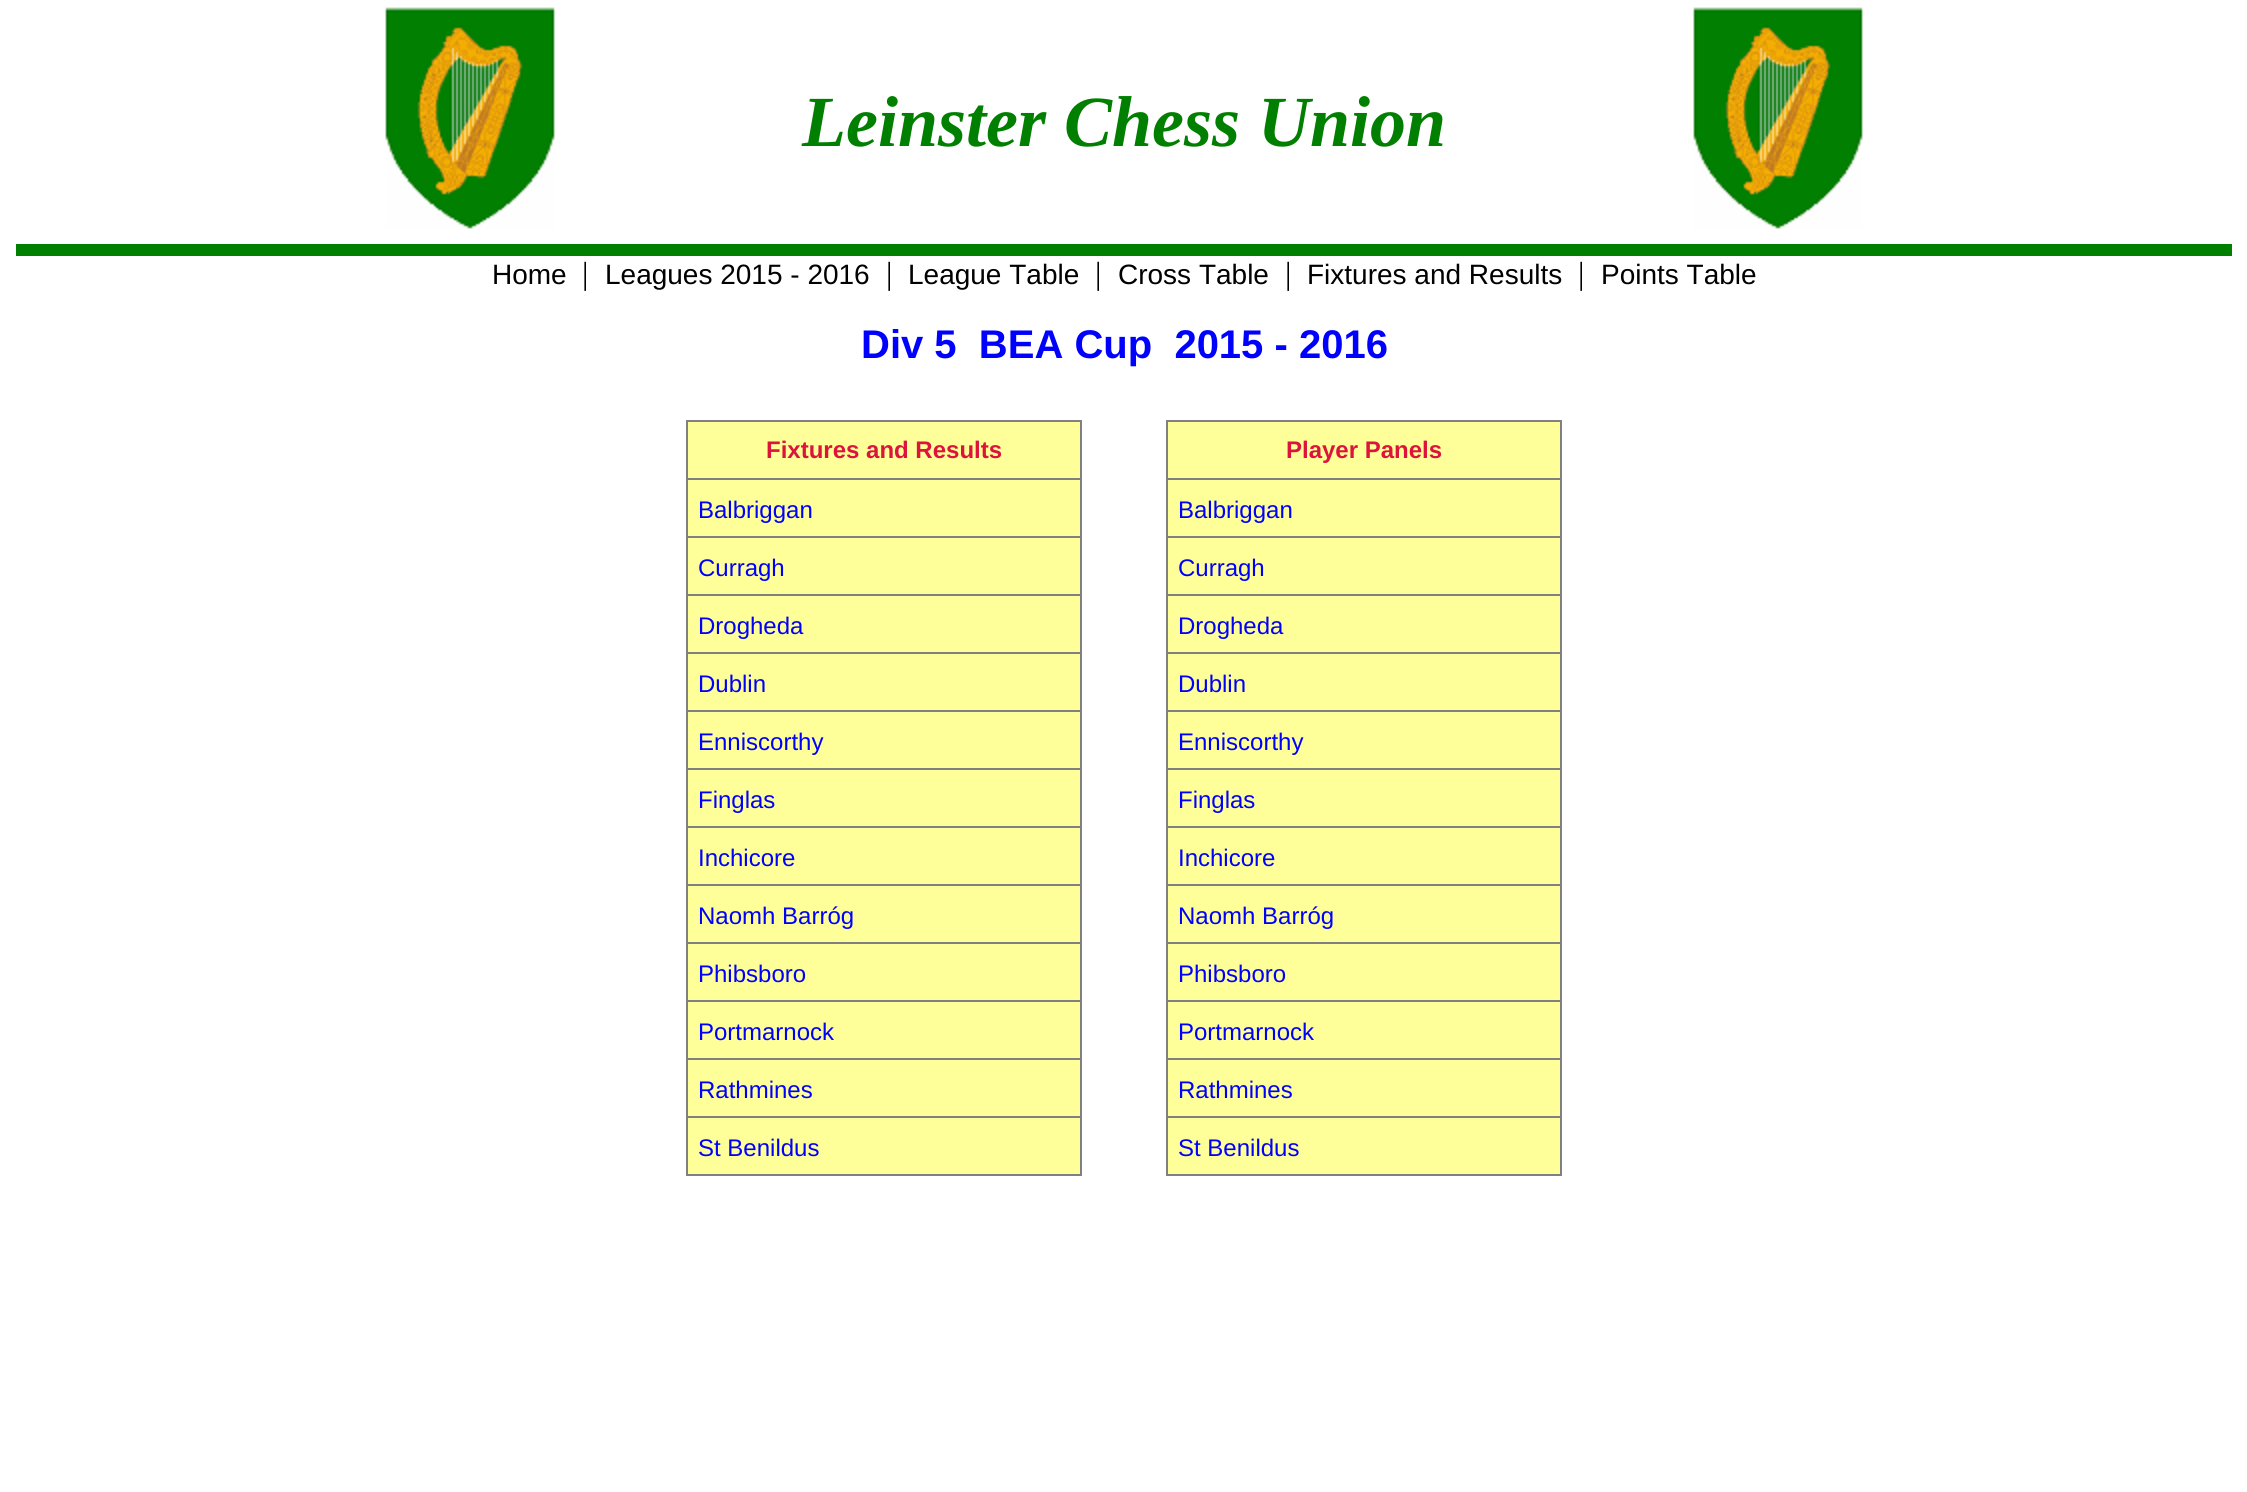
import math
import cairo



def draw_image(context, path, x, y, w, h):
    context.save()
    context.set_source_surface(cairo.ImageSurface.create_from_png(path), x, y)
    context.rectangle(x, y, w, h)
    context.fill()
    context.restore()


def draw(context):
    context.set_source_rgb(1, 1, 1)
    context.paint()
    context.set_source_rgb(0, 127 / 255, 0)
    context.rectangle(16, 244, 2216, 12)
    context.fill()
    draw_image(context, "images/1.png", 385, 7, 170, 222)
    draw_image(context, "images/1.png", 1693, 7, 170, 222)
    context.set_source_rgb(1, 1, 153 / 255)
    context.rectangle(688, 422, 392, 752)
    context.fill()
    context.set_source_rgb(128 / 255, 128 / 255, 128 / 255)
    context.rectangle(686, 420, 396, 2)
    context.fill()
    context.rectangle(1080, 420, 2, 756)
    context.fill()
    context.rectangle(686, 1174, 396, 2)
    context.fill()
    context.rectangle(686, 420, 2, 756)
    context.fill()
    context.rectangle(686, 478, 396, 2)
    context.fill()
    context.rectangle(686, 536, 396, 2)
    context.fill()
    context.rectangle(686, 594, 396, 2)
    context.fill()
    context.rectangle(686, 652, 396, 2)
    context.fill()
    context.rectangle(686, 710, 396, 2)
    context.fill()
    context.rectangle(686, 768, 396, 2)
    context.fill()
    context.rectangle(686, 826, 396, 2)
    context.fill()
    context.rectangle(686, 884, 396, 2)
    context.fill()
    context.rectangle(686, 942, 396, 2)
    context.fill()
    context.rectangle(686, 1000, 396, 2)
    context.fill()
    context.rectangle(686, 1058, 396, 2)
    context.fill()
    context.rectangle(686, 1116, 396, 2)
    context.fill()
    context.set_source_rgb(1, 1, 153 / 255)
    context.rectangle(1168, 422, 392, 752)
    context.fill()
    context.set_source_rgb(128 / 255, 128 / 255, 128 / 255)
    context.rectangle(1166, 420, 396, 2)
    context.fill()
    context.rectangle(1560, 420, 2, 756)
    context.fill()
    context.rectangle(1166, 1174, 396, 2)
    context.fill()
    context.rectangle(1166, 420, 2, 756)
    context.fill()
    context.rectangle(1166, 478, 396, 2)
    context.fill()
    context.rectangle(1166, 536, 396, 2)
    context.fill()
    context.rectangle(1166, 594, 396, 2)
    context.fill()
    context.rectangle(1166, 652, 396, 2)
    context.fill()
    context.rectangle(1166, 710, 396, 2)
    context.fill()
    context.rectangle(1166, 768, 396, 2)
    context.fill()
    context.rectangle(1166, 826, 396, 2)
    context.fill()
    context.rectangle(1166, 884, 396, 2)
    context.fill()
    context.rectangle(1166, 942, 396, 2)
    context.fill()
    context.rectangle(1166, 1000, 396, 2)
    context.fill()
    context.rectangle(1166, 1058, 396, 2)
    context.fill()
    context.rectangle(1166, 1116, 396, 2)
    context.fill()
    context.select_font_face("Liberation Serif", cairo.FontSlant.ITALIC, cairo.FontWeight.BOLD)
    context.set_font_size(72)
    context.set_source_rgb(0, 127 / 255, 0)
    context.move_to(802, 146)
    context.show_text("Leinster Chess Union")
    context.select_font_face("Liberation Sans")
    context.set_font_size(28)
    context.set_source_rgb(0, 0, 0)
    context.move_to(492, 284)
    context.show_text("Home")
    context.select_font_face("Liberation Serif")
    context.set_font_size(32)
    context.move_to(582, 284)
    context.show_text("|")
    context.select_font_face("Liberation Sans")
    context.set_font_size(28)
    context.move_to(605, 284)
    context.show_text("Leagues 2015 - 2016")
    context.select_font_face("Liberation Serif")
    context.set_font_size(32)
    context.move_to(886, 284)
    context.show_text("|")
    context.select_font_face("Liberation Sans")
    context.set_font_size(28)
    context.move_to(908, 284)
    context.show_text("League Table")
    context.select_font_face("Liberation Serif")
    context.set_font_size(32)
    context.move_to(1095, 284)
    context.show_text("|")
    context.select_font_face("Liberation Sans")
    context.set_font_size(28)
    context.move_to(1118, 284)
    context.show_text("Cross Table")
    context.select_font_face("Liberation Serif")
    context.set_font_size(32)
    context.move_to(1285, 284)
    context.show_text("|")
    context.select_font_face("Liberation Sans")
    context.set_font_size(28)
    context.move_to(1307, 284)
    context.show_text("Fixtures and Results")
    context.select_font_face("Liberation Serif")
    context.set_font_size(32)
    context.move_to(1578, 284)
    context.show_text("|")
    context.select_font_face("Liberation Sans")
    context.set_font_size(28)
    context.move_to(1601, 284)
    context.show_text("Points Table")
    context.select_font_face("Liberation Sans", cairo.FontSlant.NORMAL, cairo.FontWeight.BOLD)
    context.set_font_size(40)
    context.set_source_rgb(0, 0, 1)
    context.move_to(861, 358)
    context.show_text("Div 5  BEA Cup  2015 - 2016")
    context.set_font_size(24)
    context.set_source_rgb(220 / 255, 20 / 255, 60 / 255)
    context.move_to(766, 458)
    context.show_text("Fixtures and Results")
    context.select_font_face("Liberation Sans")
    context.set_source_rgb(0, 0, 1)
    context.move_to(698, 518)
    context.show_text("Balbriggan")
    context.move_to(698, 576)
    context.show_text("Curragh")
    context.move_to(698, 634)
    context.show_text("Drogheda")
    context.move_to(698, 692)
    context.show_text("Dublin")
    context.move_to(698, 750)
    context.show_text("Enniscorthy")
    context.move_to(698, 808)
    context.show_text("Finglas")
    context.move_to(698, 866)
    context.show_text("Inchicore")
    context.move_to(698, 924)
    context.show_text("Naomh Barróg")
    context.move_to(698, 982)
    context.show_text("Phibsboro")
    context.move_to(698, 1040)
    context.show_text("Portmarnock")
    context.move_to(698, 1098)
    context.show_text("Rathmines")
    context.move_to(698, 1156)
    context.show_text("St Benildus")
    context.select_font_face("Liberation Sans", cairo.FontSlant.NORMAL, cairo.FontWeight.BOLD)
    context.set_source_rgb(220 / 255, 20 / 255, 60 / 255)
    context.move_to(1286, 458)
    context.show_text("Player Panels")
    context.select_font_face("Liberation Sans")
    context.set_source_rgb(0, 0, 1)
    context.move_to(1178, 518)
    context.show_text("Balbriggan")
    context.move_to(1178, 576)
    context.show_text("Curragh")
    context.move_to(1178, 634)
    context.show_text("Drogheda")
    context.move_to(1178, 692)
    context.show_text("Dublin")
    context.move_to(1178, 750)
    context.show_text("Enniscorthy")
    context.move_to(1178, 808)
    context.show_text("Finglas")
    context.move_to(1178, 866)
    context.show_text("Inchicore")
    context.move_to(1178, 924)
    context.show_text("Naomh Barróg")
    context.move_to(1178, 982)
    context.show_text("Phibsboro")
    context.move_to(1178, 1040)
    context.show_text("Portmarnock")
    context.move_to(1178, 1098)
    context.show_text("Rathmines")
    context.move_to(1178, 1156)
    context.show_text("St Benildus")


surface = cairo.ImageSurface(cairo.Format.RGB24, 2247, 1492)
context = cairo.Context(surface)
options = cairo.FontOptions()
options.set_hint_metrics(cairo.HintMetrics.OFF)
options.set_hint_style(cairo.HintStyle.NONE)
context.set_font_options(options)
context.set_miter_limit(4)
draw(context)
surface.write_to_png("out.png")
